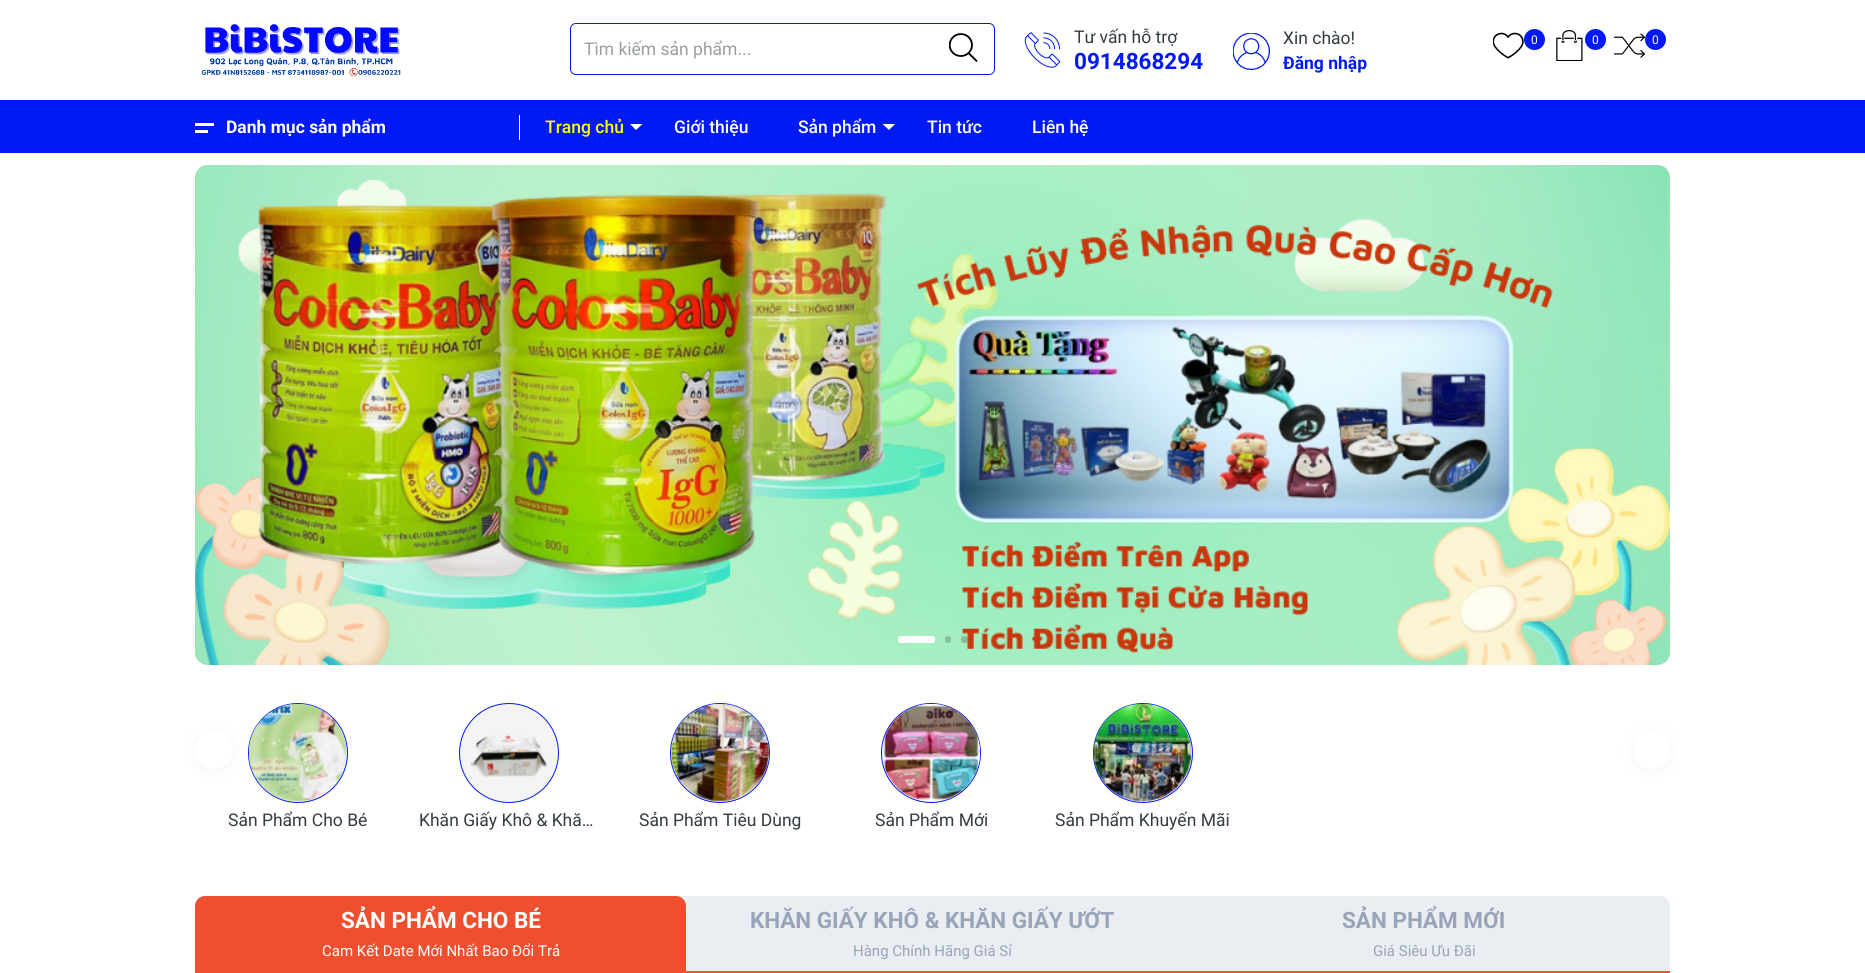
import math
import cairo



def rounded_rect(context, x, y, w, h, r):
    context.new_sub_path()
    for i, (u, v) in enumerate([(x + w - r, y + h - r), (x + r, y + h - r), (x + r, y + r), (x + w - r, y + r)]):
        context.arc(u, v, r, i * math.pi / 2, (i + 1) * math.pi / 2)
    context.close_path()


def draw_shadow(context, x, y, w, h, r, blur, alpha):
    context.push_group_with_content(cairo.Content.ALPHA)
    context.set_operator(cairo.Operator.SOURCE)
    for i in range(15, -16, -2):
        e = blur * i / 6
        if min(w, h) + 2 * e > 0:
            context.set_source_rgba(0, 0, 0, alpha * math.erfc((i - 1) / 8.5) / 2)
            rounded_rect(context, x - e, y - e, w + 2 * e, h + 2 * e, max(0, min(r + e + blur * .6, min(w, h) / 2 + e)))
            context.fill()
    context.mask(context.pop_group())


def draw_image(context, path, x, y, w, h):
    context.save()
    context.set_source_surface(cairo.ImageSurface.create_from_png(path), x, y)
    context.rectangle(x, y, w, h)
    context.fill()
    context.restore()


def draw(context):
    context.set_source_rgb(1, 1, 1)
    context.paint()
    draw_image(context, "images/1.png", 201, 23, 200, 54)
    rounded_rect(context, 570.5, 23.5, 424, 51, 5.5)
    context.set_source_rgb(1 / 255, 26 / 255, 244 / 255)
    context.set_line_width(1)
    context.stroke()
    draw_image(context, "images/2.png", 949, 33, 29, 29)
    draw_image(context, "images/3.png", 1024, 32, 37, 36)
    draw_image(context, "images/4.png", 1233, 33, 37, 37)
    draw_image(context, "images/5.png", 1493, 32, 31, 27)
    context.arc(1534.5, 39.5, 10.5, 0, 2 * math.pi)
    context.fill()
    draw_image(context, "images/6.png", 1556, 30, 27, 31)
    context.arc(1595.5, 39.5, 10.5, 0, 2 * math.pi)
    context.fill()
    draw_image(context, "images/7.png", 1614, 33, 31, 25)
    context.arc(1655.5, 39.5, 10.5, 0, 2 * math.pi)
    context.fill()
    context.rectangle(0, 100, 1865, 53)
    context.fill()
    context.set_source_rgb(1, 1, 1)
    context.rectangle(195, 123, 19, 3)
    context.fill()
    context.rectangle(195, 130, 13, 3)
    context.fill()
    context.rectangle(519, 115, 1, 25)
    context.fill()
    context.new_path()
    context.move_to(630, 124)
    context.line_to(642.5, 124)
    context.line_to(636, 130)
    context.close_path()
    context.fill()
    context.new_path()
    context.move_to(882.5, 124)
    context.line_to(895, 124)
    context.line_to(889, 130)
    context.close_path()
    context.fill()
    draw_image(context, "images/8.png", 195, 165, 1475, 500)
    rounded_rect(context, 898, 636, 37, 7, 2.5)
    context.fill()
    context.set_source_rgb(130 / 255, 191 / 255, 154 / 255)
    rounded_rect(context, 945, 636, 6, 7, 3)
    context.fill()
    context.set_source_rgba(0, 0, 0, 0.2)
    context.arc(964.5, 639.5, 3.5, 0, 2 * math.pi)
    context.fill()
    context.set_source_rgb(244 / 255, 244 / 255, 244 / 255)
    context.arc(298, 753, 49.5, 0, 2 * math.pi)
    context.fill_preserve()
    context.set_source_rgb(1 / 255, 26 / 255, 244 / 255)
    context.stroke()
    draw_image(context, "images/9.png", 249, 704, 98, 98)
    context.set_source_rgb(166 / 255, 166 / 255, 166 / 255)
    draw_shadow(context, 195, 733, 38, 37, 18.5, 7.5, 0.12)
    context.set_source_rgb(1, 1, 1)
    context.arc(214, 750, 19, 0, 2 * math.pi)
    context.fill()
    context.set_source_rgb(166 / 255, 166 / 255, 166 / 255)
    draw_shadow(context, 1633, 733, 37, 37, 18.5, 7.5, 0.12)
    context.set_source_rgb(1, 1, 1)
    rounded_rect(context, 1633, 731, 37, 38, 18.5)
    context.fill()
    context.set_source_rgb(244 / 255, 244 / 255, 244 / 255)
    context.arc(509, 753, 49.5, 0, 2 * math.pi)
    context.fill_preserve()
    context.set_source_rgb(1 / 255, 26 / 255, 244 / 255)
    context.stroke()
    draw_image(context, "images/10.png", 470, 734, 78, 43)
    context.set_source_rgb(244 / 255, 244 / 255, 244 / 255)
    context.arc(720, 753, 49.5, 0, 2 * math.pi)
    context.fill_preserve()
    context.set_source_rgb(1 / 255, 26 / 255, 244 / 255)
    context.stroke()
    draw_image(context, "images/11.png", 670, 704, 99, 98)
    context.set_source_rgb(244 / 255, 244 / 255, 244 / 255)
    context.arc(931, 753, 49.5, 0, 2 * math.pi)
    context.fill_preserve()
    context.set_source_rgb(1 / 255, 26 / 255, 244 / 255)
    context.stroke()
    draw_image(context, "images/12.png", 882, 704, 99, 98)
    context.set_source_rgb(244 / 255, 244 / 255, 244 / 255)
    context.arc(1143, 753, 49.5, 0, 2 * math.pi)
    context.fill_preserve()
    context.set_source_rgb(1 / 255, 26 / 255, 244 / 255)
    context.stroke()
    draw_image(context, "images/13.png", 1093, 704, 99, 98)
    context.set_source_rgb(234 / 255, 237 / 255, 241 / 255)
    context.new_path()
    context.move_to(205, 896)
    context.line_to(1660, 896)
    context.curve_to(1665.5, 896, 1670, 900.5, 1670, 906)
    context.line_to(1670, 971)
    context.line_to(195, 971)
    context.line_to(195, 906)
    context.curve_to(195, 900.5, 199.5, 896, 205, 896)
    context.close_path()
    context.fill()
    context.set_source_rgb(238 / 255, 80 / 255, 47 / 255)
    context.new_path()
    context.move_to(205, 896)
    context.line_to(676, 896)
    context.curve_to(681.5, 896, 686, 900.5, 686, 906)
    context.line_to(686, 971)
    context.line_to(195, 971)
    context.line_to(195, 906)
    context.curve_to(195, 900.5, 199.5, 896, 205, 896)
    context.close_path()
    context.fill()
    context.rectangle(195, 971, 1475, 2)
    context.fill()
    context.select_font_face("Roboto")
    context.set_font_size(17.5)
    context.set_source_rgb(153 / 255, 158 / 255, 161 / 255)
    context.move_to(584, 55)
    context.show_text("Tìm kiếm sản phẩm...")
    context.set_source_rgb(50 / 255, 60 / 255, 66 / 255)
    context.move_to(1074, 43)
    context.show_text("Tư vấn hỗ trợ")
    context.select_font_face("Roboto", cairo.FontSlant.NORMAL, cairo.FontWeight.BOLD)
    context.set_font_size(22.5)
    context.set_source_rgb(1 / 255, 26 / 255, 244 / 255)
    context.move_to(1074, 69)
    context.show_text("0914868294")
    context.select_font_face("Roboto")
    context.set_font_size(17.5)
    context.set_source_rgb(50 / 255, 60 / 255, 66 / 255)
    context.move_to(1283, 44)
    context.show_text("Xin chào!")
    context.select_font_face("Roboto", cairo.FontSlant.NORMAL, cairo.FontWeight.BOLD)
    context.set_source_rgb(1 / 255, 26 / 255, 244 / 255)
    context.move_to(1283, 69)
    context.show_text("Đăng nhập")
    context.select_font_face("Roboto")
    context.set_font_size(12)
    context.set_source_rgb(1, 1, 1)
    context.move_to(1531, 44)
    context.show_text("0")
    context.move_to(1592, 44)
    context.show_text("0")
    context.move_to(1652, 44)
    context.show_text("0")
    context.select_font_face("Roboto", cairo.FontSlant.NORMAL, cairo.FontWeight.BOLD)
    context.set_font_size(17.5)
    context.move_to(226, 133)
    context.show_text("Danh mục sản phẩm")
    context.select_font_face("Roboto Medium")
    context.set_source_rgb(1, 1, 0)
    context.move_to(545, 133)
    context.show_text("Trang chủ")
    context.set_source_rgb(1, 1, 1)
    context.move_to(674, 133)
    context.show_text("Giới thiệu")
    context.move_to(798, 133)
    context.show_text("Sản phẩm")
    context.move_to(927, 133)
    context.show_text("Tin tức")
    context.move_to(1032, 133)
    context.show_text("Liên hệ")
    context.select_font_face("Roboto")
    context.set_source_rgb(50 / 255, 60 / 255, 66 / 255)
    context.move_to(228, 826)
    context.show_text("Sản Phẩm Cho Bé")
    context.move_to(419, 826)
    context.show_text("Khăn Giấy Khô & Khă…")
    context.move_to(639, 826)
    context.show_text("Sản Phẩm Tiêu Dùng")
    context.move_to(875, 826)
    context.show_text("Sản Phẩm Mới")
    context.move_to(1055, 826)
    context.show_text("Sản Phẩm Khuyến Mãi")
    context.select_font_face("Roboto", cairo.FontSlant.NORMAL, cairo.FontWeight.BOLD)
    context.set_font_size(22.5)
    context.set_source_rgb(1, 1, 1)
    context.move_to(341, 928)
    context.show_text("SẢN PHẨM CHO BÉ")
    context.select_font_face("Roboto")
    context.set_font_size(15)
    context.move_to(322, 956)
    context.show_text("Cam Kết Date Mới Nhất Bao Đổi Trả")
    context.select_font_face("Roboto", cairo.FontSlant.NORMAL, cairo.FontWeight.BOLD)
    context.set_font_size(22.5)
    context.set_source_rgb(152 / 255, 165 / 255, 185 / 255)
    context.move_to(750, 928)
    context.show_text("KHĂN GIẤY KHÔ & KHĂN GIẤY ƯỚT")
    context.select_font_face("Roboto")
    context.set_font_size(15)
    context.move_to(853, 956)
    context.show_text("Hàng Chính Hãng Giá Sỉ")
    context.select_font_face("Roboto", cairo.FontSlant.NORMAL, cairo.FontWeight.BOLD)
    context.set_font_size(22.5)
    context.move_to(1342, 928)
    context.show_text("SẢN PHẨM MỚI")
    context.select_font_face("Roboto")
    context.set_font_size(15)
    context.move_to(1373, 956)
    context.show_text("Giá Siêu Ưu Đãi")


surface = cairo.ImageSurface(cairo.Format.RGB24, 1865, 973)
context = cairo.Context(surface)
options = cairo.FontOptions()
options.set_hint_metrics(cairo.HintMetrics.OFF)
options.set_hint_style(cairo.HintStyle.NONE)
context.set_font_options(options)
context.set_miter_limit(4)
draw(context)
surface.write_to_png("out.png")
